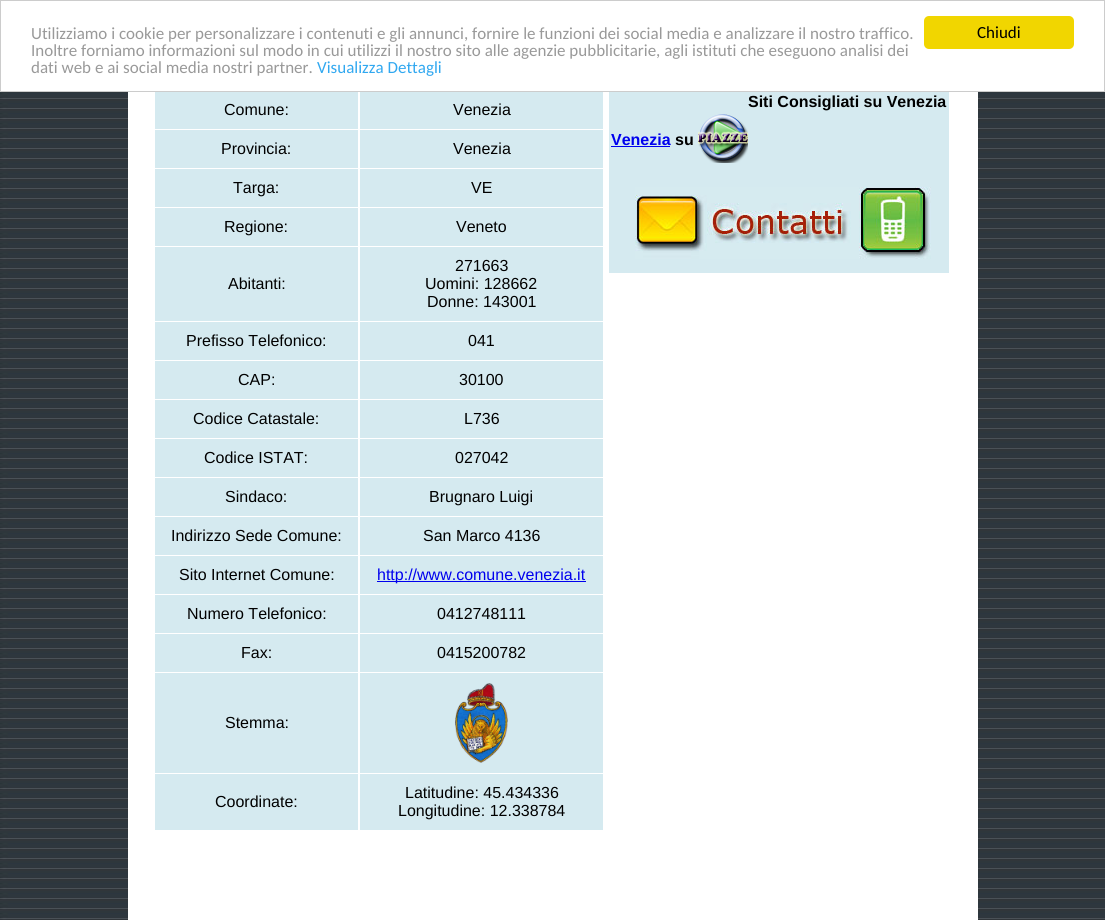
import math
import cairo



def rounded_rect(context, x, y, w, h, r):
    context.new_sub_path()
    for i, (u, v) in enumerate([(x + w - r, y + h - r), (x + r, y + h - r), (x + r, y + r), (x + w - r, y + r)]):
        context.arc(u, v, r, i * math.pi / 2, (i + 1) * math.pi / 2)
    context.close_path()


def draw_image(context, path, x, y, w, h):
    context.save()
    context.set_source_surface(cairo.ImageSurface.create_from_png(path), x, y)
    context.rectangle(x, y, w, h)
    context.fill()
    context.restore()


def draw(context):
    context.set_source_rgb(1, 1, 1)
    context.paint()
    draw_image(context, "images/1.png", 0, 92, 1105, 828)
    context.rectangle(0.5, 0.5, 1104, 91)
    context.set_source_rgb(204 / 255, 204 / 255, 204 / 255)
    context.set_line_width(1)
    context.stroke()
    context.set_source_rgb(241 / 255, 214 / 255, 0)
    rounded_rect(context, 924, 16, 150, 33, 5)
    context.fill()
    context.set_source_rgb(1, 1, 1)
    context.rectangle(128, 92, 850, 828)
    context.fill()
    context.set_source_rgb(213 / 255, 234 / 255, 240 / 255)
    context.rectangle(155, 92, 203, 37)
    context.fill()
    context.rectangle(360, 92, 243, 37)
    context.fill()
    context.rectangle(155, 130, 203, 38)
    context.fill()
    context.rectangle(360, 130, 243, 38)
    context.fill()
    context.rectangle(155, 169, 203, 38)
    context.fill()
    context.rectangle(360, 169, 243, 38)
    context.fill()
    context.rectangle(155, 208, 203, 38)
    context.fill()
    context.rectangle(360, 208, 243, 38)
    context.fill()
    context.rectangle(155, 247, 203, 74)
    context.fill()
    context.rectangle(360, 247, 243, 74)
    context.fill()
    context.rectangle(155, 322, 203, 38)
    context.fill()
    context.rectangle(360, 322, 243, 38)
    context.fill()
    context.rectangle(155, 361, 203, 38)
    context.fill()
    context.rectangle(360, 361, 243, 38)
    context.fill()
    context.rectangle(155, 400, 203, 38)
    context.fill()
    context.rectangle(360, 400, 243, 38)
    context.fill()
    context.rectangle(155, 439, 203, 38)
    context.fill()
    context.rectangle(360, 439, 243, 38)
    context.fill()
    context.rectangle(155, 478, 203, 38)
    context.fill()
    context.rectangle(360, 478, 243, 38)
    context.fill()
    context.rectangle(155, 517, 203, 38)
    context.fill()
    context.rectangle(360, 517, 243, 38)
    context.fill()
    context.rectangle(155, 556, 203, 38)
    context.fill()
    context.rectangle(360, 556, 243, 38)
    context.fill()
    context.set_source_rgb(0, 0, 238 / 255)
    context.rectangle(377, 581, 209, 1)
    context.fill()
    context.set_source_rgb(213 / 255, 234 / 255, 240 / 255)
    context.rectangle(155, 595, 203, 38)
    context.fill()
    context.rectangle(360, 595, 243, 38)
    context.fill()
    context.rectangle(155, 634, 203, 38)
    context.fill()
    context.rectangle(360, 634, 243, 38)
    context.fill()
    context.rectangle(155, 673, 203, 100)
    context.fill()
    context.rectangle(360, 673, 243, 100)
    context.fill()
    draw_image(context, "images/2.png", 455, 683, 53, 80)
    context.rectangle(155, 774, 203, 56)
    context.fill()
    context.rectangle(360, 774, 243, 56)
    context.fill()
    context.rectangle(609, 92, 340, 181)
    context.fill()
    context.set_source_rgb(0, 0, 238 / 255)
    context.rectangle(611, 146, 59, 1)
    context.fill()
    draw_image(context, "images/3.png", 698, 114, 50, 49)
    draw_image(context, "images/4.png", 635, 187, 296, 72)
    context.select_font_face("Carlito")
    context.set_font_size(17)
    context.set_source_rgb(153 / 255, 153 / 255, 153 / 255)
    context.move_to(31, 39)
    context.show_text("Utilizziamo i cookie per personalizzare i contenuti e gli annunci, fornire le funzioni dei social media e analizzare il nostro traffico.")
    context.move_to(31, 56)
    context.show_text("Inoltre forniamo informazioni sul modo in cui utilizzi il nostro sito alle agenzie pubblicitarie, agli istituti che eseguono analisi dei")
    context.move_to(31, 73)
    context.show_text("dati web e ai social media nostri partner.")
    context.set_source_rgb(49 / 255, 168 / 255, 240 / 255)
    context.move_to(317, 73)
    context.show_text("Visualizza Dettagli")
    context.set_source_rgb(0, 0, 0)
    context.move_to(977, 38)
    context.show_text("Chiudi")
    context.select_font_face("Liberation Sans")
    context.set_font_size(16)
    context.move_to(224, 115)
    context.show_text("Comune:")
    context.move_to(453, 115)
    context.show_text("Venezia")
    context.move_to(221, 154)
    context.show_text("Provincia:")
    context.move_to(453, 154)
    context.show_text("Venezia")
    context.move_to(233, 193)
    context.show_text("Targa:")
    context.move_to(471, 193)
    context.show_text("VE")
    context.move_to(224, 232)
    context.show_text("Regione:")
    context.move_to(456, 232)
    context.show_text("Veneto")
    context.move_to(228, 289)
    context.show_text("Abitanti:")
    context.move_to(455, 271)
    context.show_text("271663")
    context.move_to(425, 289)
    context.show_text("Uomini: 128662")
    context.move_to(427, 307)
    context.show_text("Donne: 143001")
    context.move_to(186, 346)
    context.show_text("Prefisso Telefonico:")
    context.move_to(468, 346)
    context.show_text("041")
    context.move_to(238, 385)
    context.show_text("CAP:")
    context.move_to(459, 385)
    context.show_text("30100")
    context.move_to(193, 424)
    context.show_text("Codice Catastale:")
    context.move_to(464, 424)
    context.show_text("L736")
    context.move_to(204, 463)
    context.show_text("Codice ISTAT:")
    context.move_to(455, 463)
    context.show_text("027042")
    context.move_to(225, 502)
    context.show_text("Sindaco:")
    context.move_to(429, 502)
    context.show_text("Brugnaro Luigi")
    context.move_to(171, 541)
    context.show_text("Indirizzo Sede Comune:")
    context.move_to(423, 541)
    context.show_text("San Marco 4136")
    context.move_to(179, 580)
    context.show_text("Sito Internet Comune:")
    context.set_source_rgb(0, 0, 238 / 255)
    context.move_to(377, 580)
    context.show_text("http://www.comune.venezia.it")
    context.set_source_rgb(0, 0, 0)
    context.move_to(187, 619)
    context.show_text("Numero Telefonico:")
    context.move_to(437, 619)
    context.show_text("0412748111")
    context.move_to(241, 658)
    context.show_text("Fax:")
    context.move_to(437, 658)
    context.show_text("0415200782")
    context.move_to(225, 728)
    context.show_text("Stemma:")
    context.move_to(215, 807)
    context.show_text("Coordinate:")
    context.move_to(405, 798)
    context.show_text("Latitudine: 45.434336")
    context.move_to(398, 816)
    context.show_text("Longitudine: 12.338784")
    context.select_font_face("Liberation Sans", cairo.FontSlant.NORMAL, cairo.FontWeight.BOLD)
    context.move_to(748, 107)
    context.show_text("Siti Consigliati su Venezia")
    context.set_source_rgb(0, 0, 238 / 255)
    context.move_to(611, 145)
    context.show_text("Venezia")
    context.set_source_rgb(0, 0, 0)
    context.move_to(675, 145)
    context.show_text("su")


surface = cairo.ImageSurface(cairo.Format.RGB24, 1105, 920)
context = cairo.Context(surface)
options = cairo.FontOptions()
options.set_hint_metrics(cairo.HintMetrics.OFF)
options.set_hint_style(cairo.HintStyle.NONE)
context.set_font_options(options)
context.set_miter_limit(4)
draw(context)
surface.write_to_png("out.png")
